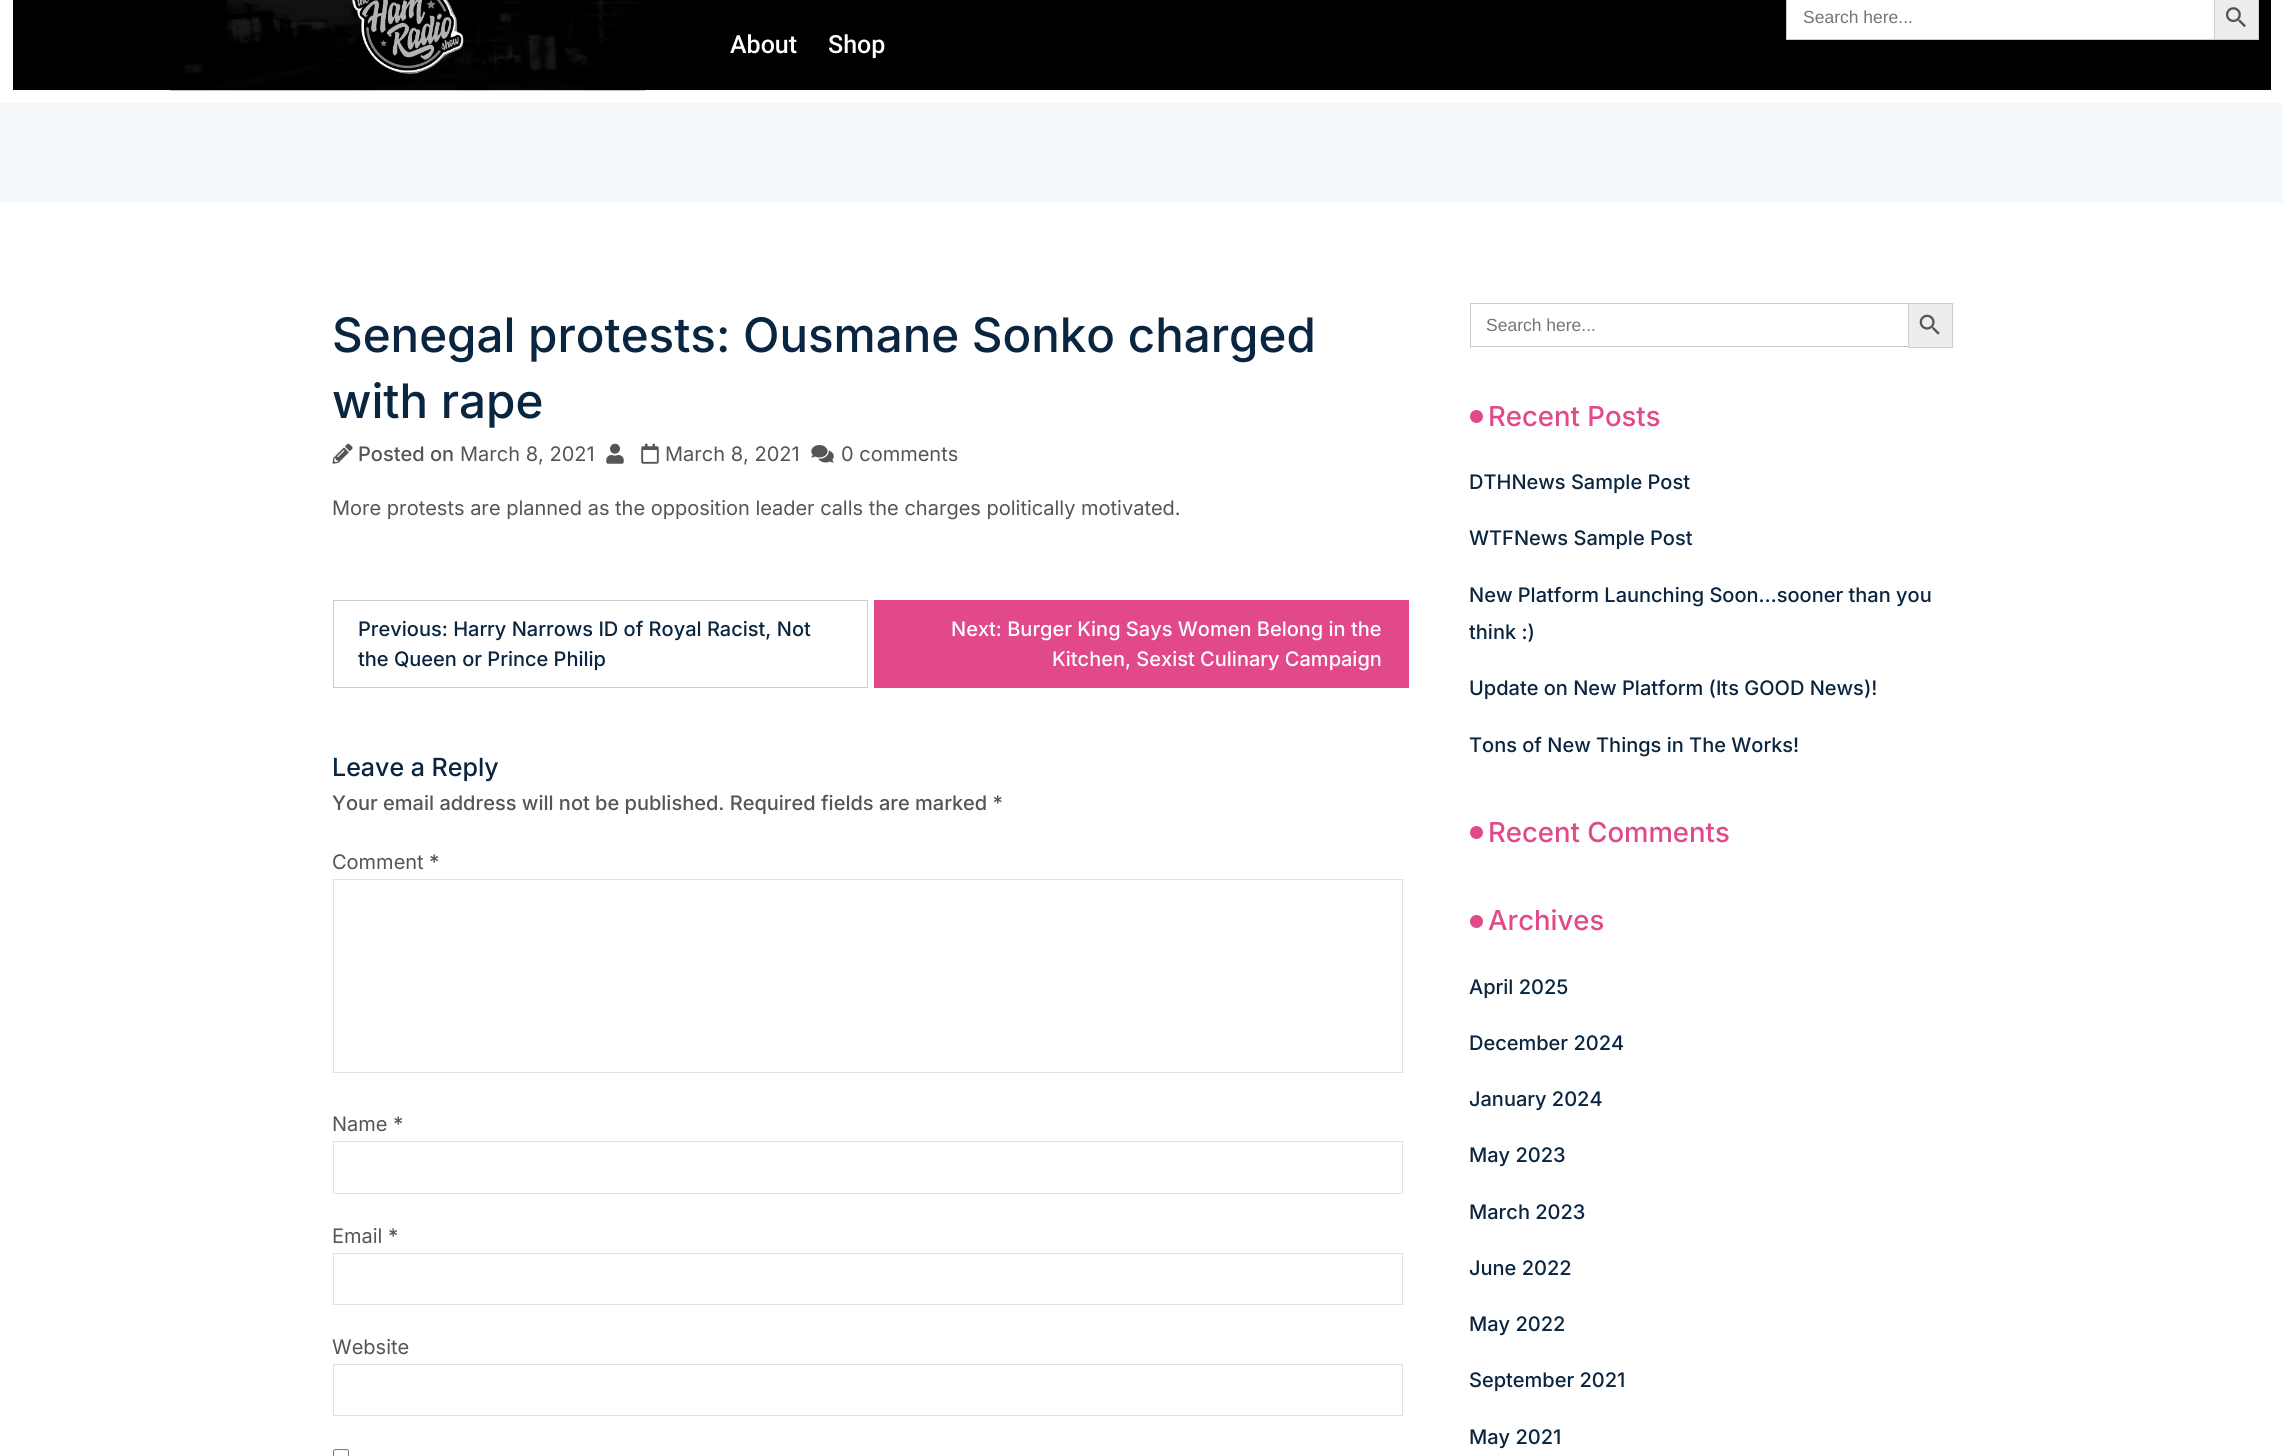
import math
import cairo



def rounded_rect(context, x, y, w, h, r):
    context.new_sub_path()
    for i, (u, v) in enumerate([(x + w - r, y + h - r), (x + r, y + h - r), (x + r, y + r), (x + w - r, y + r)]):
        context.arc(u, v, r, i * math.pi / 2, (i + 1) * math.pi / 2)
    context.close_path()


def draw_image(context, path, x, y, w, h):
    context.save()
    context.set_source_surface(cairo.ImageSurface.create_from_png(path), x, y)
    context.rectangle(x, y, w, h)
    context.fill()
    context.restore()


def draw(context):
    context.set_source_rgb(1, 1, 1)
    context.paint()
    context.set_source_rgb(0, 0, 0)
    context.rectangle(13, 0, 157, 90)
    context.fill()
    draw_image(context, "images/1.png", 170, 0, 475, 91)
    draw_image(context, "images/2.png", 352, 0, 112, 74)
    context.rectangle(645, 0, 1626, 90)
    context.fill()
    context.set_source_rgb(1, 1, 1)
    context.rectangle(1787, 0, 427, 39)
    context.fill()
    context.set_source_rgb(204 / 255, 204 / 255, 204 / 255)
    context.rectangle(1786, 39, 428, 1)
    context.fill()
    context.rectangle(1786, 0, 1, 40)
    context.fill()
    context.set_source_rgb(237 / 255, 237 / 255, 237 / 255)
    context.rectangle(2214.5, -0.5, 44, 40)
    context.fill_preserve()
    context.set_source_rgb(204 / 255, 204 / 255, 204 / 255)
    context.set_line_width(1)
    context.stroke()
    draw_image(context, "images/3.png", 2225, 7, 21, 21)
    context.set_source_rgb(246 / 255, 249 / 255, 252 / 255)
    context.rectangle(0, 103, 2283, 100)
    context.fill()
    draw_image(context, "images/4.png", 332, 443, 21, 21)
    draw_image(context, "images/5.png", 606, 443, 18, 21)
    draw_image(context, "images/6.png", 641, 443, 18, 21)
    draw_image(context, "images/7.png", 811, 445, 23, 18)
    context.rectangle(333.5, 600.5, 534, 87)
    context.set_source_rgb(204 / 255, 204 / 255, 204 / 255)
    context.stroke()
    context.set_source_rgb(226 / 255, 73 / 255, 138 / 255)
    context.rectangle(874, 600, 535, 88)
    context.fill()
    context.rectangle(333.5, 879.5, 1069, 193)
    context.set_source_rgb(225 / 255, 225 / 255, 225 / 255)
    context.stroke()
    context.rectangle(333.5, 1141.5, 1069, 52)
    context.stroke()
    context.rectangle(333.5, 1253.5, 1069, 51)
    context.stroke()
    context.rectangle(333.5, 1364.5, 1069, 51)
    context.stroke()
    rounded_rect(context, 333.5, 1449.5, 15, 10, 2)
    context.set_source_rgb(118 / 255, 118 / 255, 118 / 255)
    context.stroke()
    context.set_source_rgb(204 / 255, 204 / 255, 204 / 255)
    context.rectangle(1470, 303, 438, 1)
    context.fill()
    context.rectangle(1470, 346, 438, 1)
    context.fill()
    context.rectangle(1470, 303, 1, 45)
    context.fill()
    context.set_source_rgb(237 / 255, 237 / 255, 237 / 255)
    context.rectangle(1908.5, 303.5, 44, 44)
    context.fill_preserve()
    context.set_source_rgb(204 / 255, 204 / 255, 204 / 255)
    context.stroke()
    draw_image(context, "images/8.png", 1919, 314, 21, 21)
    context.set_source_rgb(226 / 255, 73 / 255, 138 / 255)
    context.arc(1476.5, 416.5, 6.5, 0, 2 * math.pi)
    context.fill()
    context.arc(1476.5, 832.5, 6.5, 0, 2 * math.pi)
    context.fill()
    context.arc(1476.5, 921.5, 6.5, 0, 2 * math.pi)
    context.fill()
    context.select_font_face("Liberation Sans")
    context.set_font_size(17.5)
    context.set_source_rgb(117 / 255, 117 / 255, 117 / 255)
    context.move_to(1803, 23)
    context.show_text("Search here...")
    context.select_font_face("Roboto Medium")
    context.set_font_size(25)
    context.set_source_rgb(1, 1, 1)
    context.move_to(730, 53)
    context.show_text("About")
    context.move_to(828, 53)
    context.show_text("Shop")
    context.select_font_face("Inter Medium")
    context.set_font_size(47.5)
    context.set_source_rgb(10 / 255, 37 / 255, 64 / 255)
    context.move_to(332, 352)
    context.show_text("Senegal protests: Ousmane Sonko charged")
    context.move_to(332, 418)
    context.show_text("with rape")
    context.set_font_size(20)
    context.set_source_rgb(85 / 255, 85 / 255, 85 / 255)
    context.move_to(358, 461)
    context.show_text("Posted on")
    context.select_font_face("Inter")
    context.move_to(460, 461)
    context.show_text("March 8, 2021")
    context.move_to(665, 461)
    context.show_text("March 8, 2021")
    context.move_to(841, 461)
    context.show_text("0 comments")
    context.move_to(332, 515)
    context.show_text("More protests are planned as the opposition leader calls the charges politically motivated.")
    context.select_font_face("Inter Medium")
    context.set_source_rgb(10 / 255, 37 / 255, 64 / 255)
    context.move_to(358, 636)
    context.show_text("Previous: Harry Narrows ID of Royal Racist, Not")
    context.move_to(358, 666)
    context.show_text("the Queen or Prince Philip")
    context.set_source_rgb(1, 1, 1)
    context.move_to(951, 636)
    context.show_text("Next: Burger King Says Women Belong in the")
    context.move_to(1052, 666)
    context.show_text("Kitchen, Sexist Culinary Campaign")
    context.set_font_size(25)
    context.set_source_rgb(10 / 255, 37 / 255, 64 / 255)
    context.move_to(332, 776)
    context.show_text("Leave a Reply")
    context.set_font_size(20)
    context.set_source_rgb(85 / 255, 85 / 255, 85 / 255)
    context.move_to(332, 810)
    context.show_text("Your email address will not be published. Required fields are marked *")
    context.select_font_face("Inter")
    context.move_to(332, 869)
    context.show_text("Comment")
    context.select_font_face("Inter Medium")
    context.move_to(429, 869)
    context.show_text("*")
    context.select_font_face("Inter")
    context.move_to(332, 1131)
    context.show_text("Name")
    context.select_font_face("Inter Medium")
    context.move_to(393, 1131)
    context.show_text("*")
    context.select_font_face("Inter")
    context.move_to(332, 1243)
    context.show_text("Email")
    context.select_font_face("Inter Medium")
    context.move_to(388, 1243)
    context.show_text("*")
    context.select_font_face("Inter")
    context.move_to(332, 1354)
    context.show_text("Website")
    context.select_font_face("Liberation Sans")
    context.set_font_size(17.5)
    context.set_source_rgb(117 / 255, 117 / 255, 117 / 255)
    context.move_to(1486, 331)
    context.show_text("Search here...")
    context.select_font_face("Inter Medium")
    context.set_font_size(27.5)
    context.set_source_rgb(226 / 255, 73 / 255, 138 / 255)
    context.move_to(1488, 426)
    context.show_text("Recent Posts")
    context.set_font_size(20)
    context.set_source_rgb(10 / 255, 37 / 255, 64 / 255)
    context.move_to(1469, 489)
    context.show_text("DTHNews Sample Post")
    context.move_to(1469, 545)
    context.show_text("WTFNews Sample Post")
    context.move_to(1469, 602)
    context.show_text("New Platform Launching Soon…sooner than you")
    context.move_to(1469, 639)
    context.show_text("think :)")
    context.move_to(1469, 695)
    context.show_text("Update on New Platform (Its GOOD News)!")
    context.move_to(1469, 752)
    context.show_text("Tons of New Things in The Works!")
    context.set_font_size(27.5)
    context.set_source_rgb(226 / 255, 73 / 255, 138 / 255)
    context.move_to(1488, 842)
    context.show_text("Recent Comments")
    context.move_to(1488, 930)
    context.show_text("Archives")
    context.set_font_size(20)
    context.set_source_rgb(10 / 255, 37 / 255, 64 / 255)
    context.move_to(1469, 994)
    context.show_text("April 2025")
    context.move_to(1469, 1050)
    context.show_text("December 2024")
    context.move_to(1469, 1106)
    context.show_text("January 2024")
    context.move_to(1469, 1162)
    context.show_text("May 2023")
    context.move_to(1469, 1219)
    context.show_text("March 2023")
    context.move_to(1469, 1275)
    context.show_text("June 2022")
    context.move_to(1469, 1331)
    context.show_text("May 2022")
    context.move_to(1469, 1387)
    context.show_text("September 2021")
    context.move_to(1469, 1444)
    context.show_text("May 2021")


surface = cairo.ImageSurface(cairo.Format.RGB24, 2283, 1456)
context = cairo.Context(surface)
options = cairo.FontOptions()
options.set_hint_metrics(cairo.HintMetrics.OFF)
options.set_hint_style(cairo.HintStyle.NONE)
context.set_font_options(options)
context.set_miter_limit(4)
draw(context)
surface.write_to_png("out.png")
